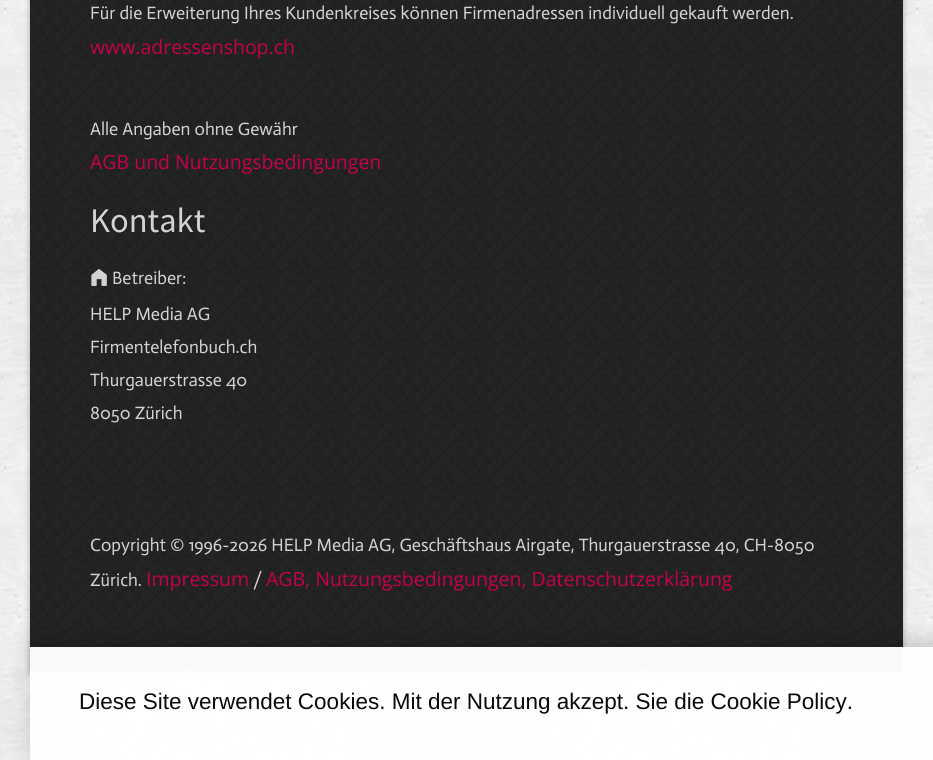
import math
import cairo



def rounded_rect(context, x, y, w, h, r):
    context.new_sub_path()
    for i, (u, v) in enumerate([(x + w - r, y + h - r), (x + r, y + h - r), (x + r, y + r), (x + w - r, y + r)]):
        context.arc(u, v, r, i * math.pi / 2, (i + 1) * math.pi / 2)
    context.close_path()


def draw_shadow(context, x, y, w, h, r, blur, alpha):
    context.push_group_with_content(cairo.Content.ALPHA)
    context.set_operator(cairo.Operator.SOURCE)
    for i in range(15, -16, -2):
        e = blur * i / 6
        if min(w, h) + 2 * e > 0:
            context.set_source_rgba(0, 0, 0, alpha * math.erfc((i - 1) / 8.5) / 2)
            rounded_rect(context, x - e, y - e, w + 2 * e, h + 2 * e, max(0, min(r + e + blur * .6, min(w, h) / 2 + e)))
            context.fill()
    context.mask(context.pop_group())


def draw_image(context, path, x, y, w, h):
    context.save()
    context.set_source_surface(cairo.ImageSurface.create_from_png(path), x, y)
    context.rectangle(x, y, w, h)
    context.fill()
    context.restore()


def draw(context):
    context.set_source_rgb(1, 1, 1)
    context.paint()
    draw_image(context, "images/1.png", 0, 0, 933, 760)
    context.set_source_rgb(0, 0, 0)
    draw_shadow(context, 30, -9, 873, 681, 0, 3, 0.3)
    context.set_source_rgb(122 / 255, 12 / 255, 12 / 255)
    context.rectangle(30, 670, 873, 1)
    context.fill()
    draw_image(context, "images/2.png", 30, 0, 873, 670)
    draw_image(context, "images/3.png", 91, 269, 16, 17)
    context.save()
    context.set_fill_rule(cairo.FillRule.EVEN_ODD)
    context.new_path()
    context.move_to(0, 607)
    context.line_to(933, 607)
    context.line_to(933, 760)
    context.line_to(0, 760)
    context.close_path()
    context.move_to(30, 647)
    context.line_to(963, 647)
    context.line_to(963, 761)
    context.line_to(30, 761)
    context.close_path()
    context.clip()
    context.set_source_rgb(0, 0, 0)
    draw_shadow(context, 32, 641, 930, 111, 0, 11, 0.18)
    context.restore()
    context.set_source_rgba(1, 1, 1, 0.97)
    context.rectangle(30, 647, 903, 113)
    context.fill()
    context.select_font_face("Actor")
    context.set_font_size(18)
    context.set_source_rgb(211 / 255, 211 / 255, 211 / 255)
    context.move_to(90, 19)
    context.show_text("Für die Erweiterung Ihres Kundenkreises können Firmenadressen individuell gekauft werden.")
    context.select_font_face("Open Sans")
    context.set_font_size(19.5)
    context.set_source_rgb(198 / 255, 0, 74 / 255)
    context.move_to(90, 54)
    context.show_text("www.adressenshop.ch")
    context.select_font_face("Actor")
    context.set_font_size(18)
    context.set_source_rgb(211 / 255, 211 / 255, 211 / 255)
    context.move_to(90, 135)
    context.show_text("Alle Angaben ohne Gewähr")
    context.select_font_face("Open Sans")
    context.set_font_size(19.5)
    context.set_source_rgb(198 / 255, 0, 74 / 255)
    context.move_to(90, 169)
    context.show_text("AGB und Nutzungsbedingungen")
    context.select_font_face("Source Sans Pro")
    context.set_font_size(34.5)
    context.set_source_rgb(211 / 255, 211 / 255, 211 / 255)
    context.move_to(90, 232)
    context.show_text("Kontakt")
    context.select_font_face("Actor")
    context.set_font_size(18)
    context.move_to(112, 284)
    context.show_text("Betreiber:")
    context.move_to(90, 320)
    context.show_text("HELP Media AG")
    context.move_to(90, 353)
    context.show_text("Firmentelefonbuch.ch")
    context.move_to(90, 386)
    context.show_text("Thurgauerstrasse 40")
    context.move_to(90, 419)
    context.show_text("8050 Zürich")
    context.move_to(90, 551)
    context.show_text("Copyright © 1996-2026 HELP Media AG, Geschäftshaus Airgate, Thurgauerstrasse 40, CH-8050")
    context.move_to(90, 586)
    context.show_text("Zürich.")
    context.select_font_face("Open Sans")
    context.set_font_size(19.5)
    context.set_source_rgb(198 / 255, 0, 74 / 255)
    context.move_to(146, 586)
    context.show_text("Impressum")
    context.select_font_face("Actor")
    context.set_font_size(18)
    context.set_source_rgb(211 / 255, 211 / 255, 211 / 255)
    context.move_to(253, 586)
    context.show_text("/")
    context.select_font_face("Open Sans")
    context.set_font_size(19.5)
    context.set_source_rgb(198 / 255, 0, 74 / 255)
    context.move_to(266, 586)
    context.show_text("AGB, Nutzungsbedingungen, Datenschutzerklärung")
    context.select_font_face("Liberation Sans")
    context.set_font_size(22.5)
    context.set_source_rgb(8 / 255, 8 / 255, 8 / 255)
    context.move_to(79, 709)
    context.show_text("Diese Site verwendet Cookies. Mit der Nutzung akzept. Sie die Cookie Policy.")


surface = cairo.ImageSurface(cairo.Format.RGB24, 933, 760)
context = cairo.Context(surface)
options = cairo.FontOptions()
options.set_hint_metrics(cairo.HintMetrics.OFF)
options.set_hint_style(cairo.HintStyle.NONE)
context.set_font_options(options)
context.set_miter_limit(4)
draw(context)
surface.write_to_png("out.png")
